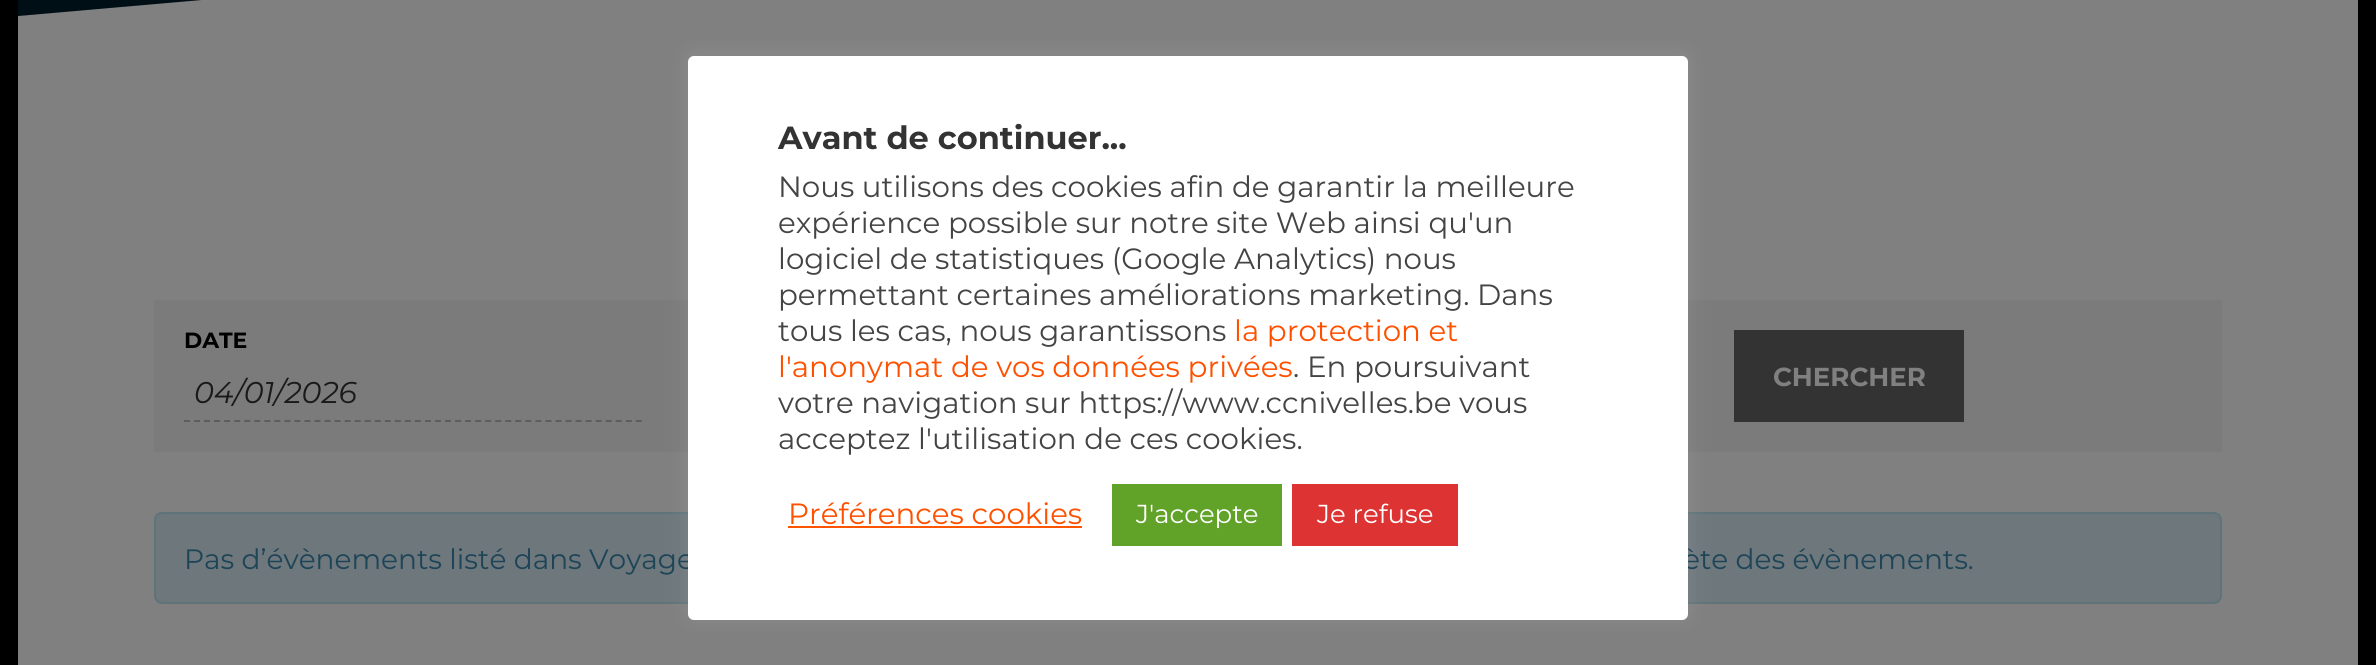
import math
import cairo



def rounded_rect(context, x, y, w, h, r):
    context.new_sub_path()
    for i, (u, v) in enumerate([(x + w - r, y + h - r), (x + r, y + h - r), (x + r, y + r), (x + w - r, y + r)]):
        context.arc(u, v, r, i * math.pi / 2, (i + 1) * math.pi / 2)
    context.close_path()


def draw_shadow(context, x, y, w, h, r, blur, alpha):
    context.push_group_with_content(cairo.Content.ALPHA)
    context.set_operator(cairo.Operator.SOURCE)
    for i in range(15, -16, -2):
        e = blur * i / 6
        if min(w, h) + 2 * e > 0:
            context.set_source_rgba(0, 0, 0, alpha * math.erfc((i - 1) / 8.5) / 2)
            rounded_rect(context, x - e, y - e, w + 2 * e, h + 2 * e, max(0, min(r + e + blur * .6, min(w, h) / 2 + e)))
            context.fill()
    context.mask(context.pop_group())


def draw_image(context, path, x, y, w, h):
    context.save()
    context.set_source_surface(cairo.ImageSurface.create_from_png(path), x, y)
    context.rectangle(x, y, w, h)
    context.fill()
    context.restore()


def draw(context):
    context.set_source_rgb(0, 0, 0)
    context.paint()
    draw_image(context, "images/1.png", 18, 0, 184, 16)
    context.set_source_rgb(128 / 255, 128 / 255, 128 / 255)
    context.new_path()
    context.move_to(18, 16)
    context.line_to(2358, -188)
    context.line_to(2358, 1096)
    context.line_to(18, 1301)
    context.close_path()
    context.fill()
    context.set_source_rgb(123 / 255, 123 / 255, 123 / 255)
    context.rectangle(154, 300, 2068, 152)
    context.fill()
    context.set_source_rgb(109 / 255, 119 / 255, 124 / 255)
    rounded_rect(context, 155, 513, 2066, 90, 7)
    context.fill_preserve()
    context.set_source_rgb(94 / 255, 116 / 255, 121 / 255)
    context.stroke()
    context.set_source_rgb(172 / 255, 171 / 255, 171 / 255)
    draw_shadow(context, 688, 54, 1000, 564, 6, 10, 0.3)
    context.new_path()
    context.move_to(184, 421)
    context.line_to(642, 421)
    context.set_source_rgb(93 / 255, 93 / 255, 93 / 255)
    context.set_dash([6, 4.04])
    context.stroke()
    context.set_source_rgb(51 / 255, 51 / 255, 51 / 255)
    context.rectangle(1734, 330, 230, 92)
    context.fill()
    context.select_font_face("Montserrat", cairo.FontSlant.NORMAL, cairo.FontWeight.BOLD)
    context.set_font_size(22)
    context.set_source_rgb(0, 0, 0)
    context.move_to(184, 348)
    context.show_text("DATE")
    context.select_font_face("Montserrat", cairo.FontSlant.ITALIC)
    context.set_font_size(30)
    context.set_source_rgb(26 / 255, 26 / 255, 26 / 255)
    context.move_to(194, 403)
    context.show_text("04/01/2026")
    context.select_font_face("Montserrat", cairo.FontSlant.NORMAL, cairo.FontWeight.BOLD)
    context.set_font_size(26)
    context.set_source_rgb(128 / 255, 128 / 255, 128 / 255)
    context.move_to(1773, 386)
    context.show_text("CHERCHER")
    context.select_font_face("Montserrat")
    context.set_font_size(28)
    context.set_source_rgb(29 / 255, 68 / 255, 87 / 255)
    context.move_to(184, 569)
    context.show_text("Pas d’évènements listé dans Voyage")
    context.move_to(1683, 569)
    context.show_text("ète des évènements.")
    context.set_source_rgb(1, 1, 1)
    rounded_rect(context, 688, 56, 1000, 564, 6)
    context.fill()
    context.set_source_rgb(221 / 255, 51 / 255, 51 / 255)
    context.rectangle(1292, 484, 166, 62)
    context.fill()
    context.set_font_size(26)
    context.set_source_rgb(1, 1, 1)
    context.move_to(1317, 523)
    context.show_text("Je refuse")
    context.set_source_rgb(97 / 255, 162 / 255, 41 / 255)
    context.rectangle(1112, 484, 170, 62)
    context.fill()
    context.set_source_rgb(1, 1, 1)
    context.move_to(1136, 523)
    context.show_text("J'accepte")
    context.set_font_size(29.3)
    context.set_source_rgb(1, 80 / 255, 0)
    context.move_to(788, 524)
    context.show_text("Préférences cookies")
    context.set_source_rgb(1, 85 / 255, 0)
    context.rectangle(788, 526, 294, 2)
    context.fill()
    context.set_source_rgb(68 / 255, 68 / 255, 68 / 255)
    context.move_to(778, 449)
    context.show_text("acceptez l'utilisation de ces cookies.")
    context.move_to(778, 413)
    context.show_text("votre navigation sur https://www.ccnivelles.be vous")
    context.move_to(1293, 377)
    context.show_text(". En poursuivant")
    context.set_source_rgb(1, 80 / 255, 0)
    context.move_to(778, 377)
    context.show_text("l'anonymat de vos données privées")
    context.move_to(1234, 341)
    context.show_text("la protection et")
    context.set_source_rgb(68 / 255, 68 / 255, 68 / 255)
    context.move_to(778, 341)
    context.show_text("tous les cas, nous garantissons")
    context.move_to(778, 305)
    context.show_text("permettant certaines améliorations marketing. Dans")
    context.move_to(778, 269)
    context.show_text("logiciel de statistiques (Google Analytics) nous")
    context.move_to(778, 233)
    context.show_text("expérience possible sur notre site Web ainsi qu'un")
    context.move_to(778, 197)
    context.show_text("Nous utilisons des cookies afin de garantir la meilleure")
    context.select_font_face("Montserrat", cairo.FontSlant.NORMAL, cairo.FontWeight.BOLD)
    context.set_font_size(32)
    context.set_source_rgb(51 / 255, 51 / 255, 51 / 255)
    context.move_to(778, 149)
    context.show_text("Avant de continuer...")


surface = cairo.ImageSurface(cairo.Format.RGB24, 2376, 665)
context = cairo.Context(surface)
options = cairo.FontOptions()
options.set_hint_metrics(cairo.HintMetrics.OFF)
options.set_hint_style(cairo.HintStyle.NONE)
context.set_font_options(options)
context.set_miter_limit(4)
draw(context)
surface.write_to_png("out.png")
